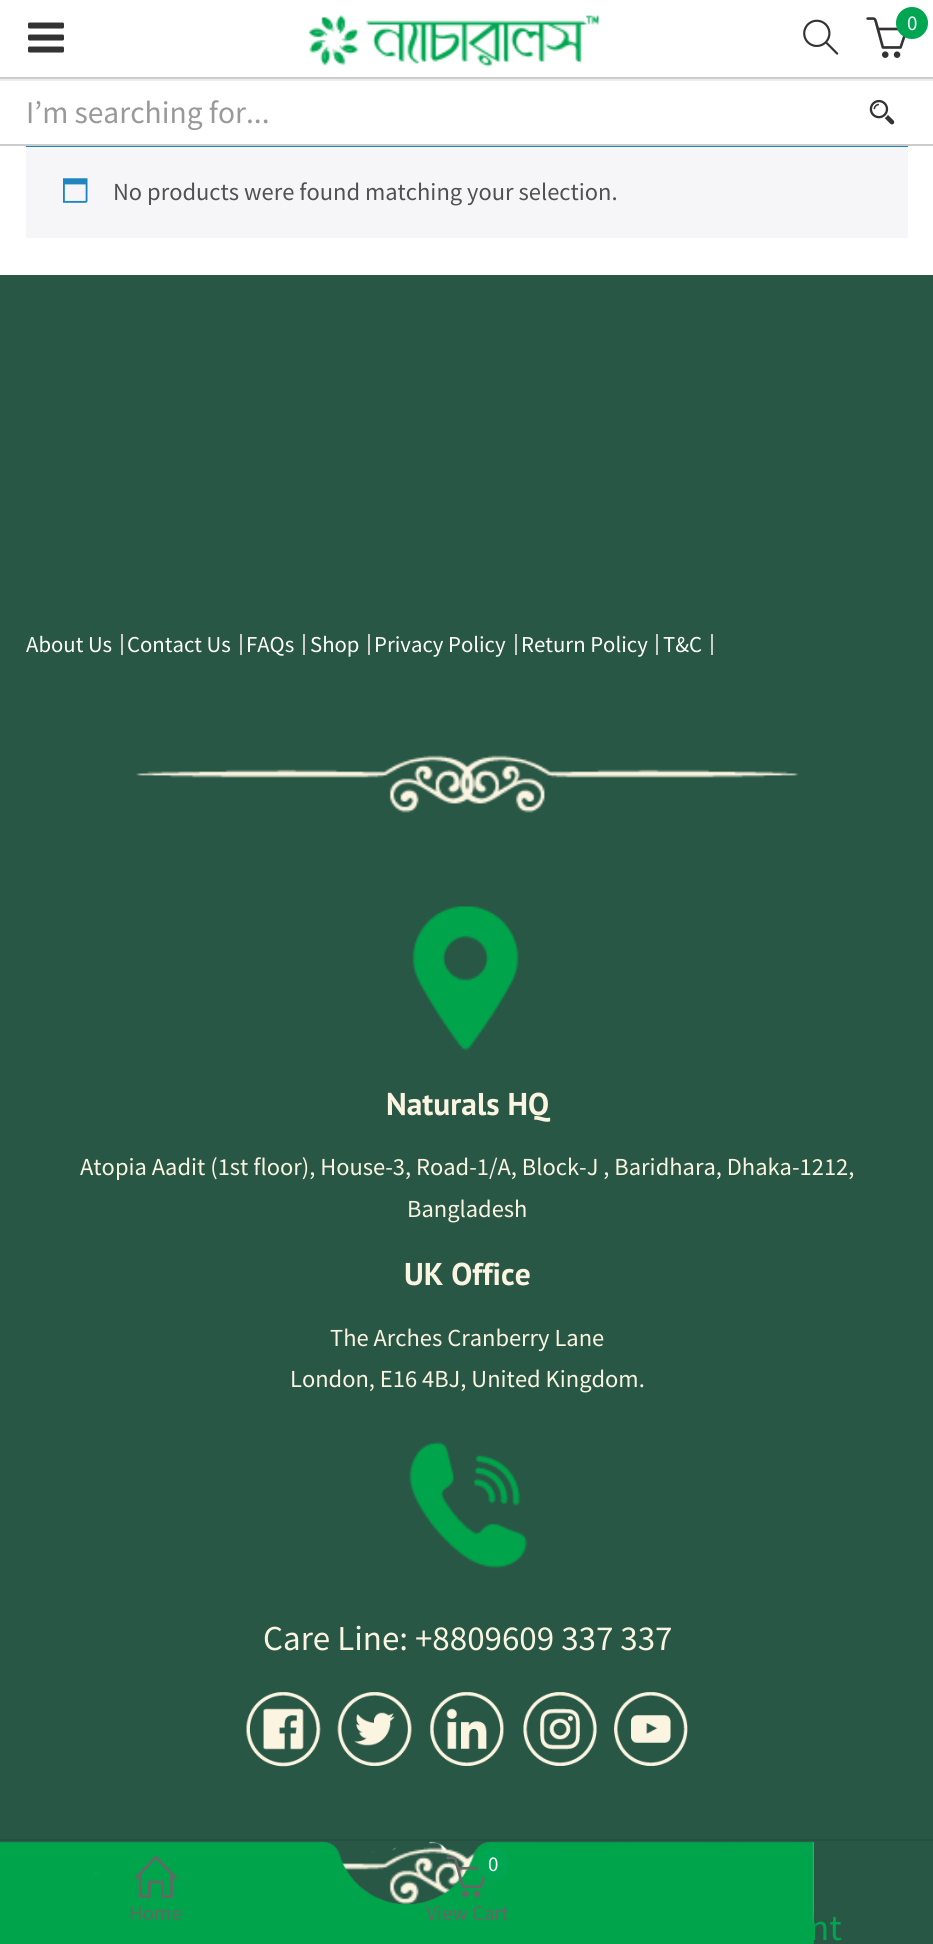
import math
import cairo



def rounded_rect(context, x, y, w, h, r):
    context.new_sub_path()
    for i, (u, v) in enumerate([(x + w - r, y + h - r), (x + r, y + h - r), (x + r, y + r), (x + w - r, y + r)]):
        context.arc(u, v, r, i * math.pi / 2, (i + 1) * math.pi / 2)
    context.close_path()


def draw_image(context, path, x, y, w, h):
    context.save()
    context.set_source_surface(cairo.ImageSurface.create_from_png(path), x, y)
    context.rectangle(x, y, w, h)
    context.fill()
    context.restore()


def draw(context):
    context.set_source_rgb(1, 1, 1)
    context.paint()
    draw_image(context, "images/1.png", 28, 22, 36, 31)
    draw_image(context, "images/2.png", 308, 15, 291, 52)
    draw_image(context, "images/3.png", 866, 17, 40, 41)
    context.set_source_rgb(0, 166 / 255, 81 / 255)
    context.arc(912, 23, 16, 0, 2 * math.pi)
    context.fill()
    draw_image(context, "images/4.png", 803, 19, 36, 36)
    context.rectangle(1, 78, 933, 63)
    context.set_source_rgb(204 / 255, 204 / 255, 204 / 255)
    context.stroke()
    context.set_source_rgb(1, 1, 1)
    context.rectangle(0, 81, 933, 61)
    context.fill()
    context.set_source_rgb(238 / 255, 238 / 255, 238 / 255)
    context.rectangle(0, 79, 933, 2)
    context.fill()
    context.set_source_rgb(204 / 255, 204 / 255, 204 / 255)
    context.rectangle(0, 144, 933, 2)
    context.fill()
    draw_image(context, "images/5.png", 869, 99, 26, 26)
    context.set_source_rgb(246 / 255, 245 / 255, 248 / 255)
    context.rectangle(26, 147, 882, 91)
    context.fill()
    context.set_source_rgb(30 / 255, 133 / 255, 190 / 255)
    context.rectangle(26, 146, 882, 1)
    context.fill()
    draw_image(context, "images/6.png", 63, 178, 25, 25)
    context.set_source_rgb(41 / 255, 87 / 255, 70 / 255)
    context.rectangle(0, 275, 933, 1669)
    context.fill()
    context.set_source_rgb(204 / 255, 204 / 255, 204 / 255)
    context.rectangle(121, 634, 2, 21)
    context.fill()
    context.rectangle(240, 634, 2, 21)
    context.fill()
    context.rectangle(303, 634, 2, 21)
    context.fill()
    context.rectangle(368, 634, 2, 21)
    context.fill()
    context.rectangle(515, 634, 2, 21)
    context.fill()
    context.rectangle(656, 634, 2, 21)
    context.fill()
    context.rectangle(711, 634, 2, 21)
    context.fill()
    draw_image(context, "images/7.png", 136, 755, 663, 58)
    draw_image(context, "images/8.png", 412, 906, 107, 145)
    draw_image(context, "images/9.png", 409, 1441, 119, 128)
    draw_image(context, "images/10.png", 246, 1692, 75, 75)
    draw_image(context, "images/11.png", 337, 1692, 75, 74)
    draw_image(context, "images/12.png", 430, 1692, 74, 74)
    draw_image(context, "images/13.png", 523, 1692, 74, 74)
    draw_image(context, "images/14.png", 614, 1692, 74, 74)
    draw_image(context, "images/15.png", 342, 1847, 135, 58)
    draw_image(context, "images/16.png", 0, 1841, 814, 103)
    context.set_source_rgb(37 / 255, 79 / 255, 64 / 255)
    context.rectangle(0, 1839, 933, 2)
    context.fill()
    draw_image(context, "images/17.png", 134, 1855, 43, 43)
    draw_image(context, "images/18.png", 446, 1856, 40, 42)
    context.set_source_rgb(0, 166 / 255, 81 / 255)
    rounded_rect(context, 478, 1848, 31, 32, 15.5)
    context.fill()
    context.select_font_face("Source Sans Pro")
    context.set_font_size(21)
    context.set_source_rgb(1, 1, 1)
    context.move_to(907, 30)
    context.show_text("0")
    context.set_font_size(31.5)
    context.set_source_rgb(153 / 255, 153 / 255, 153 / 255)
    context.move_to(26, 123)
    context.show_text("I’m searching for...")
    context.set_font_size(24.5)
    context.set_source_rgb(81 / 255, 81 / 255, 81 / 255)
    context.move_to(113, 200)
    context.show_text("No products were found matching your selection.")
    context.set_font_size(22.75)
    context.set_source_rgb(1, 1, 1)
    context.move_to(26, 652)
    context.show_text("About Us")
    context.move_to(127, 652)
    context.show_text("Contact Us")
    context.move_to(246, 652)
    context.show_text("FAQs")
    context.move_to(310, 652)
    context.show_text("Shop")
    context.move_to(374, 652)
    context.show_text("Privacy Policy")
    context.move_to(521, 652)
    context.show_text("Return Policy")
    context.move_to(663, 652)
    context.show_text("T&C")
    context.select_font_face("PT Sans", cairo.FontSlant.NORMAL, cairo.FontWeight.BOLD)
    context.set_font_size(31.5)
    context.set_source_rgb(250 / 255, 244 / 255, 224 / 255)
    context.move_to(386, 1115)
    context.show_text("Naturals HQ")
    context.select_font_face("Source Sans Pro")
    context.set_font_size(24.5)
    context.move_to(80, 1175)
    context.show_text("Atopia Aadit (1st floor), House-3, Road-1/A, Block-J , Baridhara, Dhaka-1212,")
    context.move_to(407, 1217)
    context.show_text("Bangladesh")
    context.select_font_face("PT Sans", cairo.FontSlant.NORMAL, cairo.FontWeight.BOLD)
    context.set_font_size(31.5)
    context.move_to(404, 1285)
    context.show_text("UK Office")
    context.select_font_face("Source Sans Pro")
    context.set_font_size(24.5)
    context.move_to(330, 1346)
    context.show_text("The Arches Cranberry Lane")
    context.move_to(290, 1387)
    context.show_text("London, E16 4BJ, United Kingdom.")
    context.set_font_size(35)
    context.move_to(263, 1650)
    context.show_text("Care Line: +8809609 337 337")
    context.set_font_size(21)
    context.set_source_rgb(102 / 255, 102 / 255, 102 / 255)
    context.move_to(129, 1920)
    context.show_text("Home")
    context.set_source_rgb(1, 1, 1)
    context.move_to(488, 1871)
    context.show_text("0")
    context.set_source_rgb(102 / 255, 102 / 255, 102 / 255)
    context.move_to(426, 1920)
    context.show_text("View Cart")
    context.set_font_size(37)
    context.set_source_rgb(0, 165 / 255, 79 / 255)
    context.move_to(809, 1940)
    context.show_text("nt")


surface = cairo.ImageSurface(cairo.Format.RGB24, 933, 1944)
context = cairo.Context(surface)
options = cairo.FontOptions()
options.set_hint_metrics(cairo.HintMetrics.OFF)
options.set_hint_style(cairo.HintStyle.NONE)
context.set_font_options(options)
context.set_miter_limit(4)
draw(context)
surface.write_to_png("out.png")
